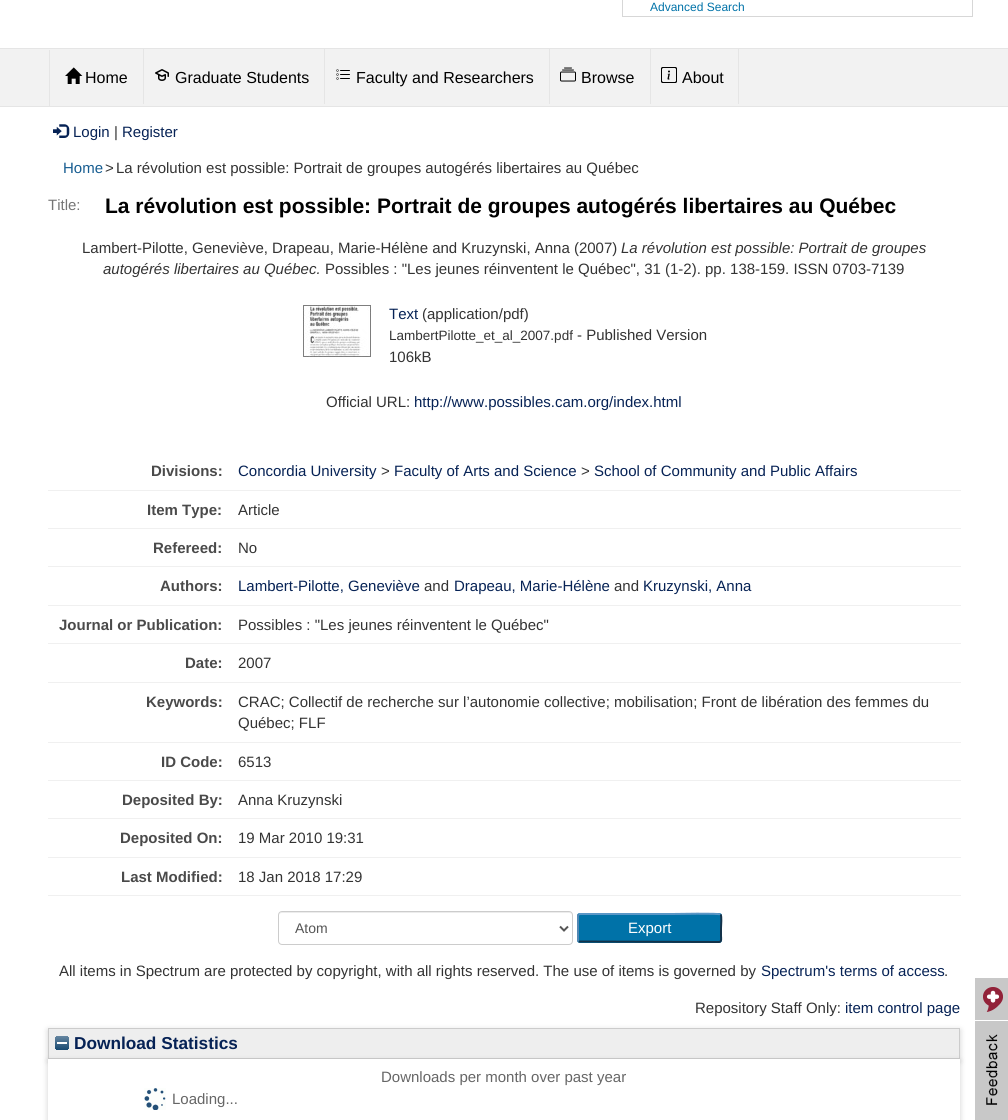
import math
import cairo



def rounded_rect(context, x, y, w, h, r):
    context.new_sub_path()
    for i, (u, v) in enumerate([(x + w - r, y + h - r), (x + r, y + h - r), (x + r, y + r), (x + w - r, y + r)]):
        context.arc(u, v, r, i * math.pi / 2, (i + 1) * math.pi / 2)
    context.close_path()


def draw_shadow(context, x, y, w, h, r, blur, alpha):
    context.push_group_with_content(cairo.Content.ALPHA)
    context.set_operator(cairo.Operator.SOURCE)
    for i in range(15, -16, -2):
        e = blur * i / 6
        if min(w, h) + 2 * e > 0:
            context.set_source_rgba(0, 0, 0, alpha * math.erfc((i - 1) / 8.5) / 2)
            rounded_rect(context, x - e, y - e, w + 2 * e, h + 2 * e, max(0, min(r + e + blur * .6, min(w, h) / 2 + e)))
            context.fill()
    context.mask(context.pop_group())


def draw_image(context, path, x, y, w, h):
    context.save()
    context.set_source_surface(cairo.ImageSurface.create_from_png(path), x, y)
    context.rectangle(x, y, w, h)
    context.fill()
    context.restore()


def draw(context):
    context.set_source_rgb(1, 1, 1)
    context.paint()
    context.rectangle(622.5, -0.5, 350, 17)
    context.set_source_rgb(215 / 255, 215 / 255, 215 / 255)
    context.set_line_width(1)
    context.stroke()
    context.set_source_rgb(242 / 255, 242 / 255, 242 / 255)
    context.rectangle(0, 49, 1008, 57)
    context.fill()
    context.set_source_rgb(229 / 255, 229 / 255, 229 / 255)
    context.rectangle(0, 48, 1008, 1)
    context.fill()
    context.rectangle(0, 106, 1008, 1)
    context.fill()
    context.rectangle(49, 50, 1, 56)
    context.fill()
    draw_image(context, "images/1.png", 65, 67, 18, 17)
    context.rectangle(143, 49, 1, 55)
    context.fill()
    draw_image(context, "images/2.png", 155, 69, 14, 12)
    context.rectangle(324, 49, 1, 55)
    context.fill()
    draw_image(context, "images/3.png", 336, 69, 14, 11)
    context.rectangle(549, 49, 1, 55)
    context.fill()
    draw_image(context, "images/4.png", 560, 67, 16, 15)
    context.rectangle(738, 49, 1, 55)
    context.fill()
    context.rectangle(650, 49, 1, 55)
    context.fill()
    draw_image(context, "images/5.png", 661, 67, 16, 16)
    draw_image(context, "images/6.png", 53, 124, 17, 14)
    draw_image(context, "images/7.png", 303, 305, 68, 52)
    context.set_source_rgb(240 / 255, 240 / 255, 240 / 255)
    context.rectangle(48, 490, 913, 1)
    context.fill()
    context.rectangle(48, 528, 913, 1)
    context.fill()
    context.rectangle(48, 566, 913, 1)
    context.fill()
    context.rectangle(48, 605, 913, 1)
    context.fill()
    context.rectangle(48, 643, 913, 1)
    context.fill()
    context.rectangle(48, 682, 913, 1)
    context.fill()
    context.rectangle(48, 742, 913, 1)
    context.fill()
    context.rectangle(48, 780, 913, 1)
    context.fill()
    context.rectangle(48, 818, 913, 1)
    context.fill()
    context.rectangle(48, 857, 913, 1)
    context.fill()
    context.rectangle(48, 895, 913, 1)
    context.fill()
    context.set_source_rgb(236 / 255, 236 / 255, 236 / 255)
    context.new_path()
    context.move_to(282, 913)
    context.line_to(569, 913)
    context.curve_to(571, 913, 572, 914, 572, 916)
    context.curve_to(572, 914, 571, 912, 569, 912)
    context.line_to(282, 912)
    context.curve_to(280, 912, 279, 914, 279, 916)
    context.curve_to(279, 914, 280, 913, 282, 913)
    context.close_path()
    context.fill()
    rounded_rect(context, 278.5, 911.5, 294, 33, 3.5)
    context.set_source_rgb(204 / 255, 204 / 255, 204 / 255)
    context.stroke()
    context.new_path()
    context.move_to(560, 926.5)
    context.line_to(564, 930.5)
    context.line_to(568, 926.5)
    context.set_source_rgb(85 / 255, 85 / 255, 85 / 255)
    context.set_line_width(2)
    context.stroke()
    context.set_source_rgb(0, 114 / 255, 168 / 255)
    rounded_rect(context, 577, 913, 145, 30, 3)
    context.fill()
    context.new_path()
    context.move_to(578.5, 914.5)
    context.line_to(580, 914)
    context.line_to(672.5, 914)
    context.curve_to(675.5, 914, 719, 913, 720.5, 914.5)
    context.set_source_rgb(91 / 255, 151 / 255, 199 / 255)
    context.stroke()
    context.new_path()
    context.move_to(720.5, 914.5)
    context.curve_to(722, 916, 721, 925.5, 721, 928)
    context.line_to(721, 936)
    context.curve_to(721, 937.5, 722, 942, 719, 942)
    context.line_to(578.5, 941.5)
    context.set_source_rgb(19 / 255, 50 / 255, 74 / 255)
    context.stroke()
    context.new_path()
    context.move_to(578.5, 941.5)
    context.curve_to(578, 941, 578, 940.5, 578, 940)
    context.line_to(578, 916)
    context.curve_to(578, 915.5, 578, 915, 578.5, 914.5)
    context.set_source_rgb(82 / 255, 135 / 255, 179 / 255)
    context.stroke()
    context.set_source_rgb(100 / 255, 100 / 255, 100 / 255)
    draw_shadow(context, 48, 1030, 912, 31, 0, 3, 0.3)
    context.set_source_rgb(238 / 255, 238 / 255, 238 / 255)
    context.rectangle(48.5, 1028.5, 911, 30)
    context.fill_preserve()
    context.set_source_rgb(204 / 255, 204 / 255, 204 / 255)
    context.set_line_width(1)
    context.stroke()
    draw_image(context, "images/8.png", 55, 1036, 14, 14)
    context.set_source_rgb(100 / 255, 100 / 255, 100 / 255)
    draw_shadow(context, 48, 1061, 912, 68, 0, 3, 0.3)
    context.set_source_rgb(1, 1, 1)
    context.rectangle(48, 1059, 912, 61)
    context.fill()
    draw_image(context, "images/9.png", 144, 1088, 22, 22)
    draw_image(context, "images/10.png", 975, 978, 33, 142)
    context.select_font_face("Liberation Sans")
    context.set_font_size(12)
    context.set_source_rgb(0, 114 / 255, 168 / 255)
    context.move_to(650, 11)
    context.show_text("Advanced Search")
    context.set_font_size(16)
    context.set_source_rgb(0, 0, 0)
    context.move_to(85, 83)
    context.show_text("Home")
    context.move_to(175, 83)
    context.show_text("Graduate Students")
    context.move_to(356, 83)
    context.show_text("Faculty and Researchers")
    context.move_to(581, 83)
    context.show_text("Browse")
    context.move_to(682, 83)
    context.show_text("About")
    context.set_font_size(15)
    context.set_source_rgb(6 / 255, 34 / 255, 85 / 255)
    context.move_to(73, 137)
    context.show_text("Login")
    context.set_source_rgb(51 / 255, 51 / 255, 51 / 255)
    context.move_to(114, 137)
    context.show_text("|")
    context.set_source_rgb(6 / 255, 34 / 255, 85 / 255)
    context.move_to(122, 137)
    context.show_text("Register")
    context.set_source_rgb(23 / 255, 93 / 255, 145 / 255)
    context.move_to(63, 173)
    context.show_text("Home")
    context.set_source_rgb(51 / 255, 51 / 255, 51 / 255)
    context.move_to(105, 173)
    context.show_text(">")
    context.move_to(116, 173)
    context.show_text("La révolution est possible: Portrait de groupes autogérés libertaires au Québec")
    context.set_source_rgb(117 / 255, 117 / 255, 117 / 255)
    context.move_to(48, 210)
    context.show_text("Title:")
    context.select_font_face("Liberation Sans", cairo.FontSlant.NORMAL, cairo.FontWeight.BOLD)
    context.set_font_size(21)
    context.set_source_rgb(0, 0, 0)
    context.move_to(105, 213)
    context.show_text("La révolution est possible: Portrait de groupes autogérés libertaires au Québec")
    context.select_font_face("Liberation Sans")
    context.set_font_size(15)
    context.set_source_rgb(51 / 255, 51 / 255, 51 / 255)
    context.move_to(82, 253)
    context.show_text("Lambert-Pilotte, Geneviève, Drapeau, Marie-Hélène and Kruzynski, Anna (2007)")
    context.select_font_face("Liberation Sans", cairo.FontSlant.ITALIC)
    context.move_to(621, 253)
    context.show_text("La révolution est possible: Portrait de groupes")
    context.move_to(103, 274)
    context.show_text("autogérés libertaires au Québec.")
    context.select_font_face("Liberation Sans")
    context.move_to(325, 274)
    context.show_text("Possibles : \"Les jeunes réinventent le Québec\", 31 (1-2). pp. 138-159. ISSN 0703-7139")
    context.set_source_rgb(6 / 255, 34 / 255, 85 / 255)
    context.move_to(389, 319)
    context.show_text("Text")
    context.set_source_rgb(51 / 255, 51 / 255, 51 / 255)
    context.move_to(422, 319)
    context.show_text("(application/pdf)")
    context.set_font_size(13.5)
    context.move_to(389, 340)
    context.show_text("LambertPilotte_et_al_2007.pdf")
    context.set_font_size(15)
    context.move_to(577, 340)
    context.show_text("- Published Version")
    context.move_to(389, 362)
    context.show_text("106kB")
    context.move_to(326, 407)
    context.show_text("Official URL:")
    context.set_source_rgb(6 / 255, 34 / 255, 85 / 255)
    context.move_to(414, 407)
    context.show_text("http://www.possibles.cam.org/index.html")
    context.select_font_face("Liberation Sans", cairo.FontSlant.NORMAL, cairo.FontWeight.BOLD)
    context.set_source_rgb(74 / 255, 74 / 255, 74 / 255)
    context.move_to(151, 476)
    context.show_text("Divisions:")
    context.select_font_face("Liberation Sans")
    context.set_source_rgb(6 / 255, 34 / 255, 85 / 255)
    context.move_to(238, 476)
    context.show_text("Concordia University")
    context.set_source_rgb(51 / 255, 51 / 255, 51 / 255)
    context.move_to(381, 476)
    context.show_text(">")
    context.set_source_rgb(6 / 255, 34 / 255, 85 / 255)
    context.move_to(394, 476)
    context.show_text("Faculty of Arts and Science")
    context.set_source_rgb(51 / 255, 51 / 255, 51 / 255)
    context.move_to(581, 476)
    context.show_text(">")
    context.set_source_rgb(6 / 255, 34 / 255, 85 / 255)
    context.move_to(594, 476)
    context.show_text("School of Community and Public Affairs")
    context.select_font_face("Liberation Sans", cairo.FontSlant.NORMAL, cairo.FontWeight.BOLD)
    context.set_source_rgb(74 / 255, 74 / 255, 74 / 255)
    context.move_to(147, 515)
    context.show_text("Item Type:")
    context.select_font_face("Liberation Sans")
    context.set_source_rgb(51 / 255, 51 / 255, 51 / 255)
    context.move_to(238, 515)
    context.show_text("Article")
    context.select_font_face("Liberation Sans", cairo.FontSlant.NORMAL, cairo.FontWeight.BOLD)
    context.set_source_rgb(74 / 255, 74 / 255, 74 / 255)
    context.move_to(153, 553)
    context.show_text("Refereed:")
    context.select_font_face("Liberation Sans")
    context.set_source_rgb(51 / 255, 51 / 255, 51 / 255)
    context.move_to(238, 553)
    context.show_text("No")
    context.select_font_face("Liberation Sans", cairo.FontSlant.NORMAL, cairo.FontWeight.BOLD)
    context.set_source_rgb(74 / 255, 74 / 255, 74 / 255)
    context.move_to(160, 591)
    context.show_text("Authors:")
    context.select_font_face("Liberation Sans")
    context.set_source_rgb(6 / 255, 34 / 255, 85 / 255)
    context.move_to(238, 591)
    context.show_text("Lambert-Pilotte, Geneviève")
    context.set_source_rgb(51 / 255, 51 / 255, 51 / 255)
    context.move_to(424, 591)
    context.show_text("and")
    context.set_source_rgb(6 / 255, 34 / 255, 85 / 255)
    context.move_to(454, 591)
    context.show_text("Drapeau, Marie-Hélène")
    context.set_source_rgb(51 / 255, 51 / 255, 51 / 255)
    context.move_to(614, 591)
    context.show_text("and")
    context.set_source_rgb(6 / 255, 34 / 255, 85 / 255)
    context.move_to(643, 591)
    context.show_text("Kruzynski, Anna")
    context.select_font_face("Liberation Sans", cairo.FontSlant.NORMAL, cairo.FontWeight.BOLD)
    context.set_source_rgb(74 / 255, 74 / 255, 74 / 255)
    context.move_to(59, 630)
    context.show_text("Journal or Publication:")
    context.select_font_face("Liberation Sans")
    context.set_source_rgb(51 / 255, 51 / 255, 51 / 255)
    context.move_to(238, 630)
    context.show_text("Possibles : \"Les jeunes réinventent le Québec\"")
    context.select_font_face("Liberation Sans", cairo.FontSlant.NORMAL, cairo.FontWeight.BOLD)
    context.set_source_rgb(74 / 255, 74 / 255, 74 / 255)
    context.move_to(185, 668)
    context.show_text("Date:")
    context.select_font_face("Liberation Sans")
    context.set_source_rgb(51 / 255, 51 / 255, 51 / 255)
    context.move_to(238, 668)
    context.show_text("2007")
    context.select_font_face("Liberation Sans", cairo.FontSlant.NORMAL, cairo.FontWeight.BOLD)
    context.set_source_rgb(74 / 255, 74 / 255, 74 / 255)
    context.move_to(146, 707)
    context.show_text("Keywords:")
    context.select_font_face("Liberation Sans")
    context.set_source_rgb(51 / 255, 51 / 255, 51 / 255)
    context.move_to(238, 707)
    context.show_text("CRAC; Collectif de recherche sur l’autonomie collective; mobilisation; Front de libération des femmes du")
    context.move_to(238, 728)
    context.show_text("Québec; FLF")
    context.select_font_face("Liberation Sans", cairo.FontSlant.NORMAL, cairo.FontWeight.BOLD)
    context.set_source_rgb(74 / 255, 74 / 255, 74 / 255)
    context.move_to(161, 767)
    context.show_text("ID Code:")
    context.select_font_face("Liberation Sans")
    context.set_source_rgb(51 / 255, 51 / 255, 51 / 255)
    context.move_to(238, 767)
    context.show_text("6513")
    context.select_font_face("Liberation Sans", cairo.FontSlant.NORMAL, cairo.FontWeight.BOLD)
    context.set_source_rgb(74 / 255, 74 / 255, 74 / 255)
    context.move_to(122, 805)
    context.show_text("Deposited By:")
    context.select_font_face("Liberation Sans")
    context.set_source_rgb(51 / 255, 51 / 255, 51 / 255)
    context.move_to(238, 805)
    context.show_text("Anna Kruzynski")
    context.select_font_face("Liberation Sans", cairo.FontSlant.NORMAL, cairo.FontWeight.BOLD)
    context.set_source_rgb(74 / 255, 74 / 255, 74 / 255)
    context.move_to(120, 843)
    context.show_text("Deposited On:")
    context.select_font_face("Liberation Sans")
    context.set_source_rgb(51 / 255, 51 / 255, 51 / 255)
    context.move_to(238, 843)
    context.show_text("19 Mar 2010 19:31")
    context.select_font_face("Liberation Sans", cairo.FontSlant.NORMAL, cairo.FontWeight.BOLD)
    context.set_source_rgb(74 / 255, 74 / 255, 74 / 255)
    context.move_to(121, 882)
    context.show_text("Last Modified:")
    context.select_font_face("Liberation Sans")
    context.set_source_rgb(51 / 255, 51 / 255, 51 / 255)
    context.move_to(238, 882)
    context.show_text("18 Jan 2018 17:29")
    context.set_font_size(14)
    context.set_source_rgb(85 / 255, 85 / 255, 85 / 255)
    context.move_to(295, 933)
    context.show_text("Atom")
    context.set_font_size(15)
    context.set_source_rgb(1, 1, 1)
    context.move_to(628, 933)
    context.show_text("Export")
    context.set_source_rgb(51 / 255, 51 / 255, 51 / 255)
    context.move_to(59, 976)
    context.show_text("All items in Spectrum are protected by copyright, with all rights reserved. The use of items is governed by")
    context.set_source_rgb(6 / 255, 34 / 255, 85 / 255)
    context.move_to(761, 976)
    context.show_text("Spectrum's terms of access")
    context.set_source_rgb(51 / 255, 51 / 255, 51 / 255)
    context.move_to(944, 976)
    context.show_text(".")
    context.move_to(695, 1013)
    context.show_text("Repository Staff Only:")
    context.set_source_rgb(6 / 255, 34 / 255, 85 / 255)
    context.move_to(845, 1013)
    context.show_text("item control page")
    context.select_font_face("Liberation Sans", cairo.FontSlant.NORMAL, cairo.FontWeight.BOLD)
    context.set_font_size(17.25)
    context.move_to(74, 1049)
    context.show_text("Download Statistics")
    context.select_font_face("Liberation Sans")
    context.set_font_size(15)
    context.set_source_rgb(102 / 255, 102 / 255, 102 / 255)
    context.move_to(381, 1082)
    context.show_text("Downloads per month over past year")
    context.move_to(172, 1104)
    context.show_text("Loading...")


surface = cairo.ImageSurface(cairo.Format.RGB24, 1008, 1120)
context = cairo.Context(surface)
options = cairo.FontOptions()
options.set_hint_metrics(cairo.HintMetrics.OFF)
options.set_hint_style(cairo.HintStyle.NONE)
context.set_font_options(options)
context.set_miter_limit(4)
draw(context)
surface.write_to_png("out.png")
